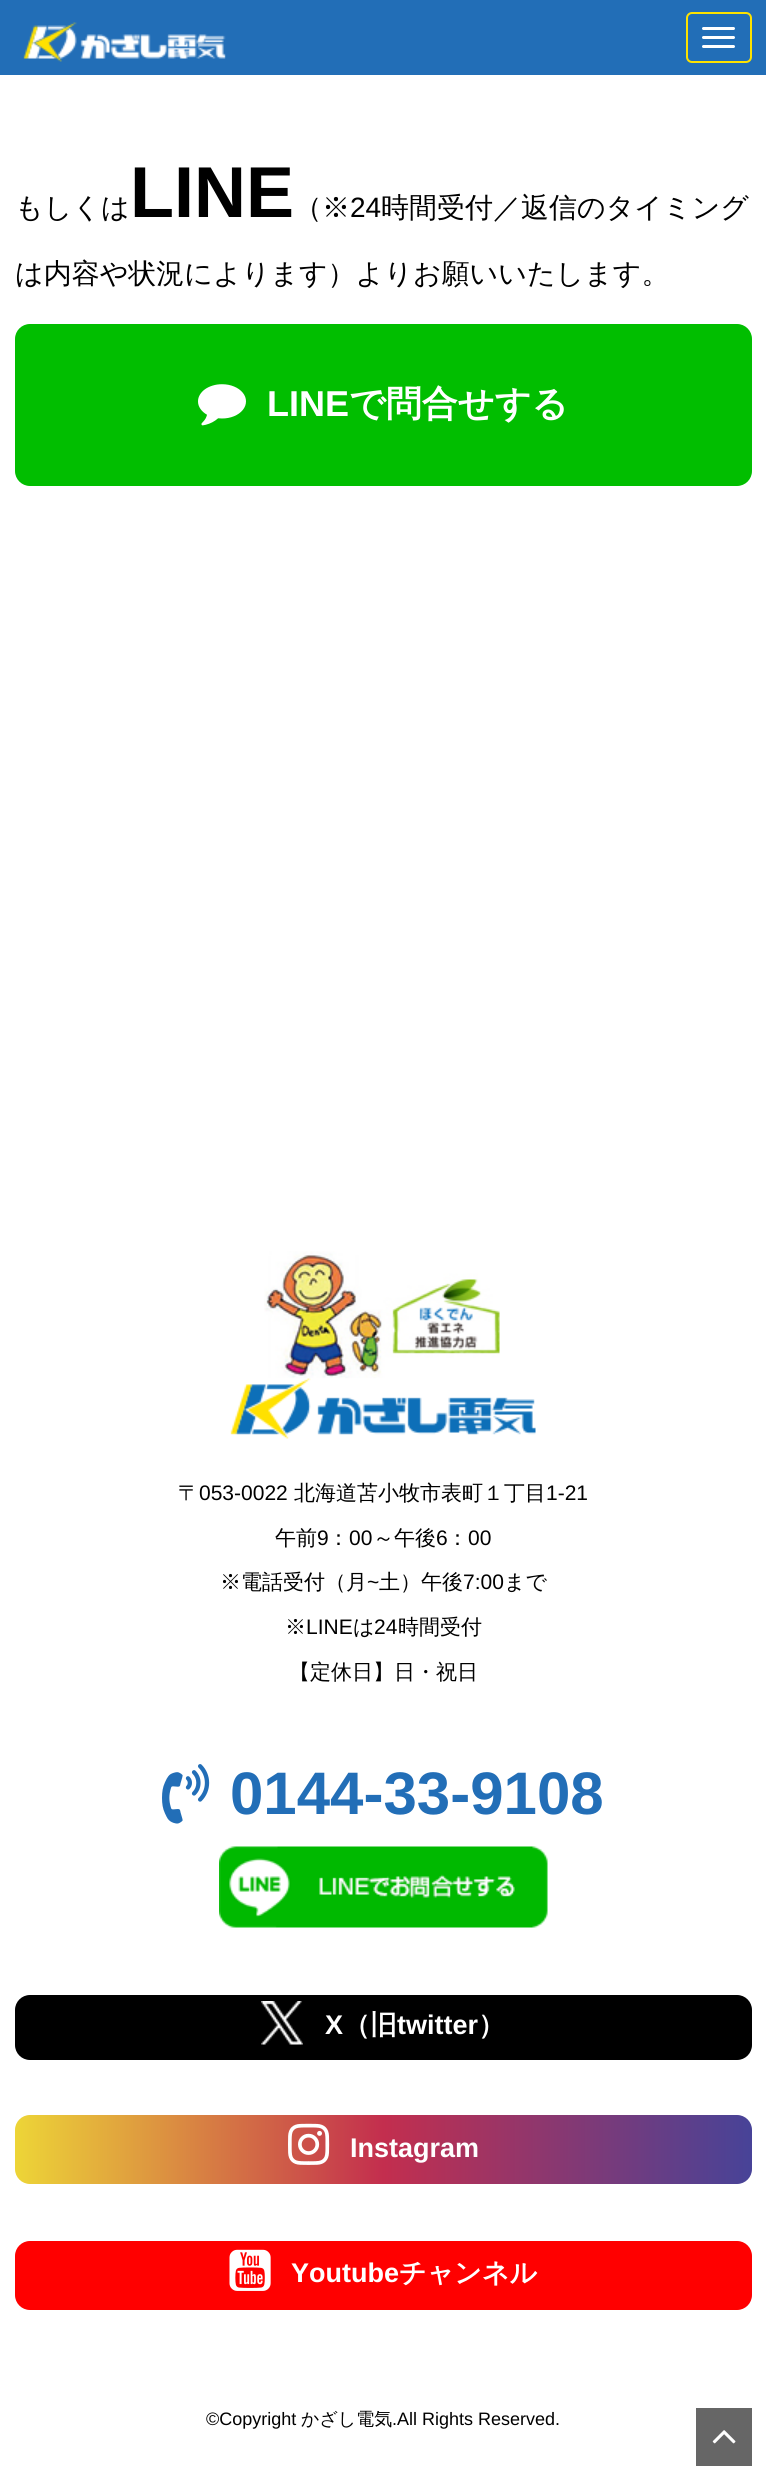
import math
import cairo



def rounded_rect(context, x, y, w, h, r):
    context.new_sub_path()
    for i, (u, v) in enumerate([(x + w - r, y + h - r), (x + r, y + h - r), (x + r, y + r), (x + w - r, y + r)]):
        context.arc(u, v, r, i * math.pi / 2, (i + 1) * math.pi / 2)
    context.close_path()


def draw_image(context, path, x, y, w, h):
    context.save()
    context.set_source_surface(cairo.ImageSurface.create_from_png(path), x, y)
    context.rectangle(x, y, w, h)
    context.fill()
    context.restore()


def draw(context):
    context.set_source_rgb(1, 1, 1)
    context.paint()
    context.set_source_rgb(34 / 255, 110 / 255, 183 / 255)
    context.rectangle(0, 0, 766, 75)
    context.fill()
    draw_image(context, "images/1.png", 23, 22, 203, 40)
    rounded_rect(context, 687, 13, 64, 49, 5)
    context.set_source_rgb(253 / 255, 226 / 255, 0)
    context.stroke()
    context.set_source_rgb(1, 1, 1)
    rounded_rect(context, 702, 27, 33, 3, 1.5)
    context.fill()
    rounded_rect(context, 702, 36, 33, 3, 1.5)
    context.fill()
    rounded_rect(context, 702, 45, 33, 3, 1.5)
    context.fill()
    context.set_source_rgb(1 / 255, 190 / 255, 0)
    rounded_rect(context, 15, 324, 737, 162, 15)
    context.fill()
    draw_image(context, "images/2.png", 198, 384, 48, 42)
    draw_image(context, "images/3.png", 264, 1251, 236, 128)
    draw_image(context, "images/4.png", 230, 1378, 306, 61)
    draw_image(context, "images/5.png", 162, 1764, 48, 60)
    draw_image(context, "images/6.png", 219, 1846, 329, 82)
    context.set_source_rgb(0, 0, 0)
    rounded_rect(context, 15, 1995, 737, 65, 15)
    context.fill()
    draw_image(context, "images/7.png", 261, 2001, 42, 44)
    gradient = cairo.LinearGradient(752, 2150, 15, 2150)
    gradient.add_color_stop_rgba(0, 71 / 255, 67 / 255, 152 / 255, 1)
    gradient.add_color_stop_rgba(0.5, 195 / 255, 46 / 255, 78 / 255, 1)
    gradient.add_color_stop_rgba(1, 237 / 255, 213 / 255, 55 / 255, 1)
    context.set_source(gradient)
    rounded_rect(context, 15, 2115, 737, 69, 15)
    context.fill()
    draw_image(context, "images/8.png", 288, 2123, 42, 42)
    context.set_source_rgb(1, 0, 0)
    rounded_rect(context, 15, 2241, 737, 69, 15)
    context.fill()
    draw_image(context, "images/9.png", 229, 2249, 42, 42)
    context.set_source_rgb(102 / 255, 102 / 255, 102 / 255)
    context.rectangle(696, 2408, 56, 58)
    context.fill()
    draw_image(context, "images/10.png", 712, 2430, 24, 14)
    context.select_font_face("WenQuanYi Zen Hei Medium")
    context.set_font_size(28)
    context.set_source_rgb(0, 0, 0)
    context.move_to(15, 217)
    context.show_text("もしくは")
    context.select_font_face("Liberation Sans", cairo.FontSlant.NORMAL, cairo.FontWeight.BOLD)
    context.set_font_size(72)
    context.move_to(130, 217)
    context.show_text("LINE")
    context.select_font_face("WenQuanYi Zen Hei Medium")
    context.set_font_size(28)
    context.move_to(294, 217)
    context.show_text("（※")
    context.select_font_face("Liberation Sans")
    context.move_to(350, 217)
    context.show_text("24")
    context.select_font_face("WenQuanYi Zen Hei Medium")
    context.move_to(381, 217)
    context.show_text("時間受付／返信のタイミング")
    context.move_to(15, 283)
    context.show_text("は内容や状況によります）よりお願いいたします。")
    context.select_font_face("Liberation Sans", cairo.FontSlant.NORMAL, cairo.FontWeight.BOLD)
    context.set_font_size(36)
    context.set_source_rgb(1, 1, 1)
    context.move_to(267, 416)
    context.show_text("LINE")
    context.select_font_face("WenQuanYi Zen Hei", cairo.FontSlant.NORMAL, cairo.FontWeight.BOLD)
    context.move_to(349, 416)
    context.show_text("で問合せする")
    context.select_font_face("WenQuanYi Zen Hei Medium")
    context.set_font_size(21)
    context.set_source_rgb(0, 0, 0)
    context.move_to(178, 1500)
    context.show_text("〒")
    context.select_font_face("Liberation Sans")
    context.move_to(199, 1500)
    context.show_text("053-0022")
    context.select_font_face("WenQuanYi Zen Hei Medium")
    context.move_to(294, 1500)
    context.show_text("北海道苫小牧市表町１丁目")
    context.select_font_face("Liberation Sans")
    context.move_to(546, 1500)
    context.show_text("1-21")
    context.select_font_face("WenQuanYi Zen Hei Medium")
    context.move_to(275, 1545)
    context.show_text("午前")
    context.select_font_face("Liberation Sans")
    context.move_to(317, 1545)
    context.show_text("9")
    context.select_font_face("WenQuanYi Zen Hei Medium")
    context.move_to(328, 1545)
    context.show_text("：")
    context.select_font_face("Liberation Sans")
    context.move_to(349, 1545)
    context.show_text("00")
    context.select_font_face("WenQuanYi Zen Hei Medium")
    context.move_to(373, 1545)
    context.show_text("～午後")
    context.select_font_face("Liberation Sans")
    context.move_to(436, 1545)
    context.show_text("6")
    context.select_font_face("WenQuanYi Zen Hei Medium")
    context.move_to(447, 1545)
    context.show_text("：")
    context.select_font_face("Liberation Sans")
    context.move_to(468, 1545)
    context.show_text("00")
    context.select_font_face("WenQuanYi Zen Hei Medium")
    context.move_to(220, 1589)
    context.show_text("※電話受付（月")
    context.select_font_face("Liberation Sans")
    context.move_to(367, 1589)
    context.show_text("~")
    context.select_font_face("WenQuanYi Zen Hei Medium")
    context.move_to(379, 1589)
    context.show_text("土）午後")
    context.select_font_face("Liberation Sans")
    context.move_to(463, 1589)
    context.show_text("7:00")
    context.select_font_face("WenQuanYi Zen Hei Medium")
    context.move_to(504, 1589)
    context.show_text("まで")
    context.move_to(285, 1634)
    context.show_text("※")
    context.select_font_face("Liberation Sans")
    context.move_to(306, 1634)
    context.show_text("LINE")
    context.select_font_face("WenQuanYi Zen Hei Medium")
    context.move_to(353, 1634)
    context.show_text("は")
    context.select_font_face("Liberation Sans")
    context.move_to(374, 1634)
    context.show_text("24")
    context.select_font_face("WenQuanYi Zen Hei Medium")
    context.move_to(398, 1634)
    context.show_text("時間受付")
    context.move_to(289, 1679)
    context.show_text("【定休日】日・祝日")
    context.select_font_face("Liberation Sans", cairo.FontSlant.NORMAL, cairo.FontWeight.BOLD)
    context.set_font_size(60)
    context.set_source_rgb(34 / 255, 110 / 255, 183 / 255)
    context.move_to(230, 1814)
    context.show_text("0144-33-9108")
    context.set_font_size(27)
    context.set_source_rgb(1, 1, 1)
    context.move_to(325, 2034)
    context.show_text("X")
    context.select_font_face("WenQuanYi Zen Hei", cairo.FontSlant.NORMAL, cairo.FontWeight.BOLD)
    context.move_to(343, 2034)
    context.show_text("（旧")
    context.select_font_face("Liberation Sans", cairo.FontSlant.NORMAL, cairo.FontWeight.BOLD)
    context.move_to(397, 2034)
    context.show_text("twitter")
    context.select_font_face("WenQuanYi Zen Hei", cairo.FontSlant.NORMAL, cairo.FontWeight.BOLD)
    context.move_to(478, 2034)
    context.show_text("）")
    context.select_font_face("Liberation Sans", cairo.FontSlant.NORMAL, cairo.FontWeight.BOLD)
    context.move_to(350, 2157)
    context.show_text("Instagram")
    context.move_to(291, 2282)
    context.show_text("Youtube")
    context.select_font_face("WenQuanYi Zen Hei", cairo.FontSlant.NORMAL, cairo.FontWeight.BOLD)
    context.move_to(399, 2282)
    context.show_text("チャンネル")
    context.select_font_face("Liberation Sans")
    context.set_font_size(18)
    context.set_source_rgb(0, 0, 0)
    context.move_to(206, 2425)
    context.show_text("©Copyright")
    context.select_font_face("WenQuanYi Zen Hei Medium")
    context.move_to(301, 2425)
    context.show_text("かざし電気")
    context.select_font_face("Liberation Sans")
    context.move_to(392, 2425)
    context.show_text(".All Rights Reserved.")


surface = cairo.ImageSurface(cairo.Format.RGB24, 766, 2480)
context = cairo.Context(surface)
options = cairo.FontOptions()
options.set_hint_metrics(cairo.HintMetrics.OFF)
options.set_hint_style(cairo.HintStyle.NONE)
context.set_font_options(options)
context.set_miter_limit(4)
draw(context)
surface.write_to_png("out.png")
